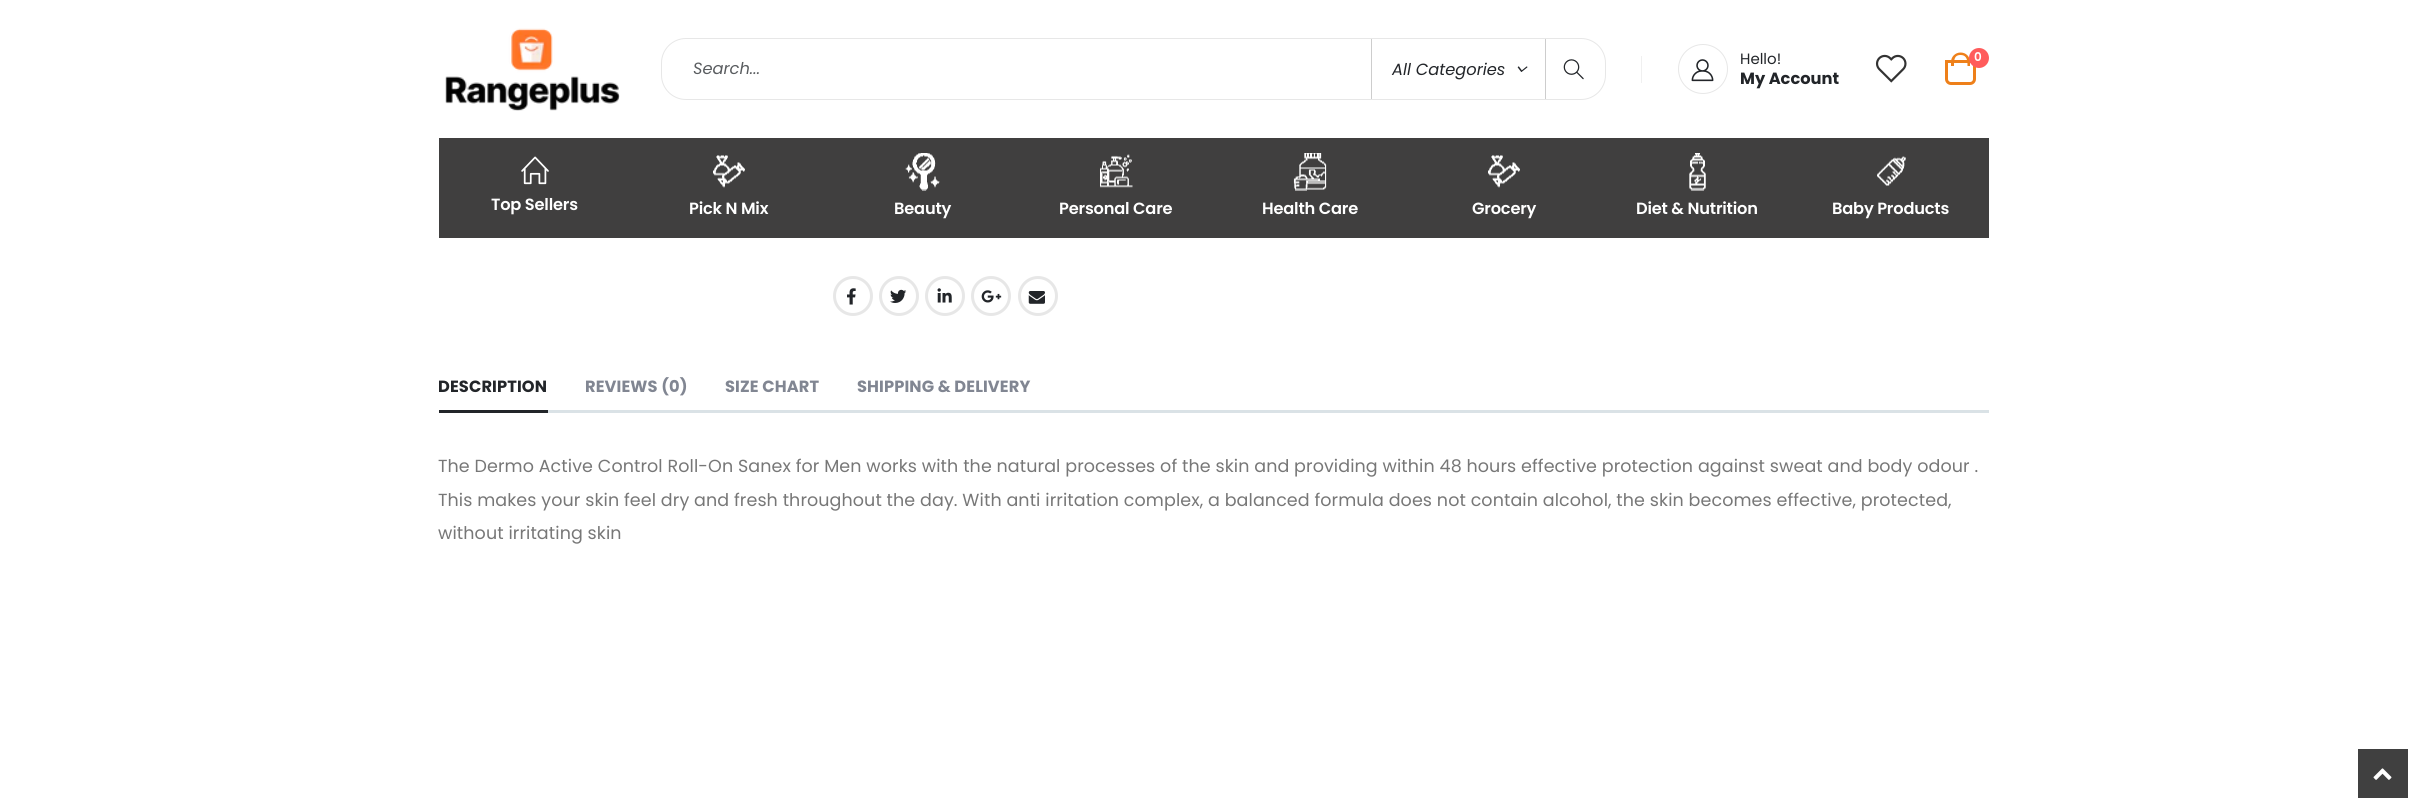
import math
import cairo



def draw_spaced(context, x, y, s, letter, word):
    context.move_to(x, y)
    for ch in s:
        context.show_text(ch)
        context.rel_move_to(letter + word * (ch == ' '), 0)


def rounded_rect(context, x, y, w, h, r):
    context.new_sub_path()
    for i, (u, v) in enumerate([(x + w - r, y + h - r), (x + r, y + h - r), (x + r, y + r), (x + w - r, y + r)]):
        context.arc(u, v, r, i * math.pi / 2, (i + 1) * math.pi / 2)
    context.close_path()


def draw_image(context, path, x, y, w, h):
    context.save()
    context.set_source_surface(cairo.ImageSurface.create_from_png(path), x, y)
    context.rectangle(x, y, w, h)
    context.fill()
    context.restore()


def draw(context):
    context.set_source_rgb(1, 1, 1)
    context.paint()
    draw_image(context, "images/1.png", 445, 28, 175, 83)
    rounded_rect(context, 661.5, 38.5, 944, 61, 24.5)
    context.set_source_rgb(231 / 255, 231 / 255, 231 / 255)
    context.set_line_width(1)
    context.stroke()
    context.set_source_rgb(205 / 255, 205 / 255, 205 / 255)
    context.rectangle(1545, 39, 1, 60)
    context.fill()
    context.rectangle(1371, 39, 1, 60)
    context.fill()
    draw_image(context, "images/2.png", 1517, 66, 11, 6)
    draw_image(context, "images/3.png", 1563, 59, 21, 21)
    context.set_source_rgb(240 / 255, 240 / 255, 240 / 255)
    context.rectangle(1641, 56, 1, 27)
    context.fill()
    context.arc(1703, 69, 24.5, 0, 2 * math.pi)
    context.set_source_rgb(231 / 255, 231 / 255, 231 / 255)
    context.stroke()
    draw_image(context, "images/4.png", 1691, 59, 23, 23)
    draw_image(context, "images/5.png", 1875, 54, 32, 29)
    context.new_path()
    context.move_to(1946.5, 61.5)
    context.line_to(1974.5, 61.5)
    context.line_to(1974.5, 79)
    context.curve_to(1974.5, 81.5, 1972.5, 83.5, 1970, 83.5)
    context.line_to(1951, 83.5)
    context.curve_to(1948.5, 83.5, 1946.5, 81.5, 1946.5, 79)
    context.close_path()
    context.set_source_rgb(238 / 255, 128 / 255, 26 / 255)
    context.set_line_width(3)
    context.stroke()
    context.set_fill_rule(cairo.FillRule.EVEN_ODD)
    context.new_path()
    context.move_to(1960.5, 52.5)
    context.curve_to(1966, 52.5, 1970, 56.5, 1970, 62)
    context.line_to(1970, 66)
    context.line_to(1951, 66)
    context.line_to(1951, 62)
    context.curve_to(1951, 56.5, 1955.5, 52.5, 1960.5, 52.5)
    context.close_path()
    context.move_to(1960.5, 55)
    context.curve_to(1967.5, 55, 1967.5, 61.5, 1967.5, 66)
    context.line_to(1954, 66)
    context.curve_to(1954, 61.5, 1953.5, 55, 1960.5, 55)
    context.close_path()
    context.fill()
    context.set_source_rgb(1, 91 / 255, 91 / 255)
    context.arc(1979, 58, 10, 0, 2 * math.pi)
    context.fill()
    context.set_source_rgb(64 / 255, 63 / 255, 63 / 255)
    context.rectangle(439, 138, 1550, 100)
    context.fill()
    draw_image(context, "images/6.png", 521, 156, 28, 29)
    draw_image(context, "images/7.png", 713, 155, 32, 33)
    draw_image(context, "images/8.png", 905, 153, 35, 38)
    draw_image(context, "images/9.png", 1100, 154, 33, 34)
    draw_image(context, "images/10.png", 1293, 153, 34, 38)
    draw_image(context, "images/7.png", 1488, 155, 32, 33)
    draw_image(context, "images/11.png", 1689, 153, 17, 38)
    draw_image(context, "images/12.png", 1877, 156, 29, 30)
    context.arc(853, 296, 18.5, 0, 2 * math.pi)
    context.set_source_rgb(231 / 255, 231 / 255, 231 / 255)
    context.stroke()
    draw_image(context, "images/13.png", 847, 288, 9, 17)
    context.arc(899, 296, 18.5, 0, 2 * math.pi)
    context.stroke()
    draw_image(context, "images/14.png", 890, 289, 17, 14)
    context.arc(945, 296, 18.5, 0, 2 * math.pi)
    context.stroke()
    draw_image(context, "images/15.png", 937, 288, 15, 15)
    context.arc(991, 296, 18.5, 0, 2 * math.pi)
    context.stroke()
    draw_image(context, "images/16.png", 981, 290, 21, 13)
    context.arc(1038, 296, 18.5, 0, 2 * math.pi)
    context.stroke()
    draw_image(context, "images/17.png", 1028, 291, 17, 13)
    context.set_source_rgb(218 / 255, 226 / 255, 230 / 255)
    context.rectangle(548, 410, 1441, 3)
    context.fill()
    context.set_source_rgb(34 / 255, 37 / 255, 41 / 255)
    context.rectangle(439, 410, 109, 3)
    context.fill()
    context.set_source_rgb(64 / 255, 64 / 255, 64 / 255)
    context.rectangle(2358, 749, 50, 49)
    context.fill()
    draw_image(context, "images/18.png", 2373, 768, 19, 12)
    context.select_font_face("Poppins", cairo.FontSlant.ITALIC)
    context.set_font_size(16.25)
    context.set_source_rgb(89 / 255, 92 / 255, 95 / 255)
    context.move_to(693, 74)
    context.show_text("Search...")
    context.set_source_rgb(34 / 255, 37 / 255, 41 / 255)
    context.move_to(1392, 75)
    context.show_text("All Categories")
    context.select_font_face("Poppins")
    context.set_font_size(15)
    context.move_to(1740, 64)
    context.show_text("Hello!")
    context.select_font_face("Poppins", cairo.FontSlant.NORMAL, cairo.FontWeight.BOLD)
    context.set_font_size(16.25)
    context.move_to(1740, 84)
    context.show_text("My Account")
    context.select_font_face("Poppins SemiBold")
    context.set_font_size(12)
    context.set_source_rgb(1, 1, 1)
    context.move_to(1974, 61)
    context.show_text("0")
    context.set_font_size(16.25)
    draw_spaced(context, 491, 210, "Top Sellers", -0.2, 0)
    draw_spaced(context, 689, 214, "Pick N Mix", -0.2, 0)
    draw_spaced(context, 894, 214, "Beauty", -0.2, 0)
    draw_spaced(context, 1059, 214, "Personal Care", -0.2, 0)
    draw_spaced(context, 1262, 214, "Health Care", -0.2, 0)
    draw_spaced(context, 1472, 214, "Grocery", -0.2, 0)
    draw_spaced(context, 1636, 214, "Diet & Nutrition", -0.2, 0)
    draw_spaced(context, 1832, 214, "Baby Products", -0.2, 0)
    context.select_font_face("Poppins", cairo.FontSlant.NORMAL, cairo.FontWeight.BOLD)
    context.set_source_rgb(34 / 255, 37 / 255, 41 / 255)
    draw_spaced(context, 438, 392, "DESCRIPTION", 0.1, 0)
    context.set_source_rgb(129 / 255, 134 / 255, 146 / 255)
    draw_spaced(context, 585, 392, "REVIEWS (0)", 0.1, 0)
    draw_spaced(context, 725, 392, "SIZE CHART", 0.1, 0)
    draw_spaced(context, 857, 392, "SHIPPING & DELIVERY", 0.1, 0)
    context.select_font_face("Poppins")
    context.set_font_size(17.5)
    context.set_source_rgb(119 / 255, 119 / 255, 119 / 255)
    draw_spaced(context, 438, 472, "The Dermo Active Control Roll-On Sanex for Men works with the natural processes of the skin and providing within 48 hours effective protection against sweat and body odour .", 0.09, 0)
    draw_spaced(context, 438, 506, "This makes your skin feel dry and fresh throughout the day. With anti irritation complex, a balanced formula does not contain alcohol, the skin becomes effective, protected,", 0.09, 0)
    draw_spaced(context, 438, 539, "without irritating skin", 0.09, 0)


surface = cairo.ImageSurface(cairo.Format.RGB24, 2426, 798)
context = cairo.Context(surface)
options = cairo.FontOptions()
options.set_hint_metrics(cairo.HintMetrics.OFF)
options.set_hint_style(cairo.HintStyle.NONE)
context.set_font_options(options)
context.set_miter_limit(4)
draw(context)
surface.write_to_png("out.png")
